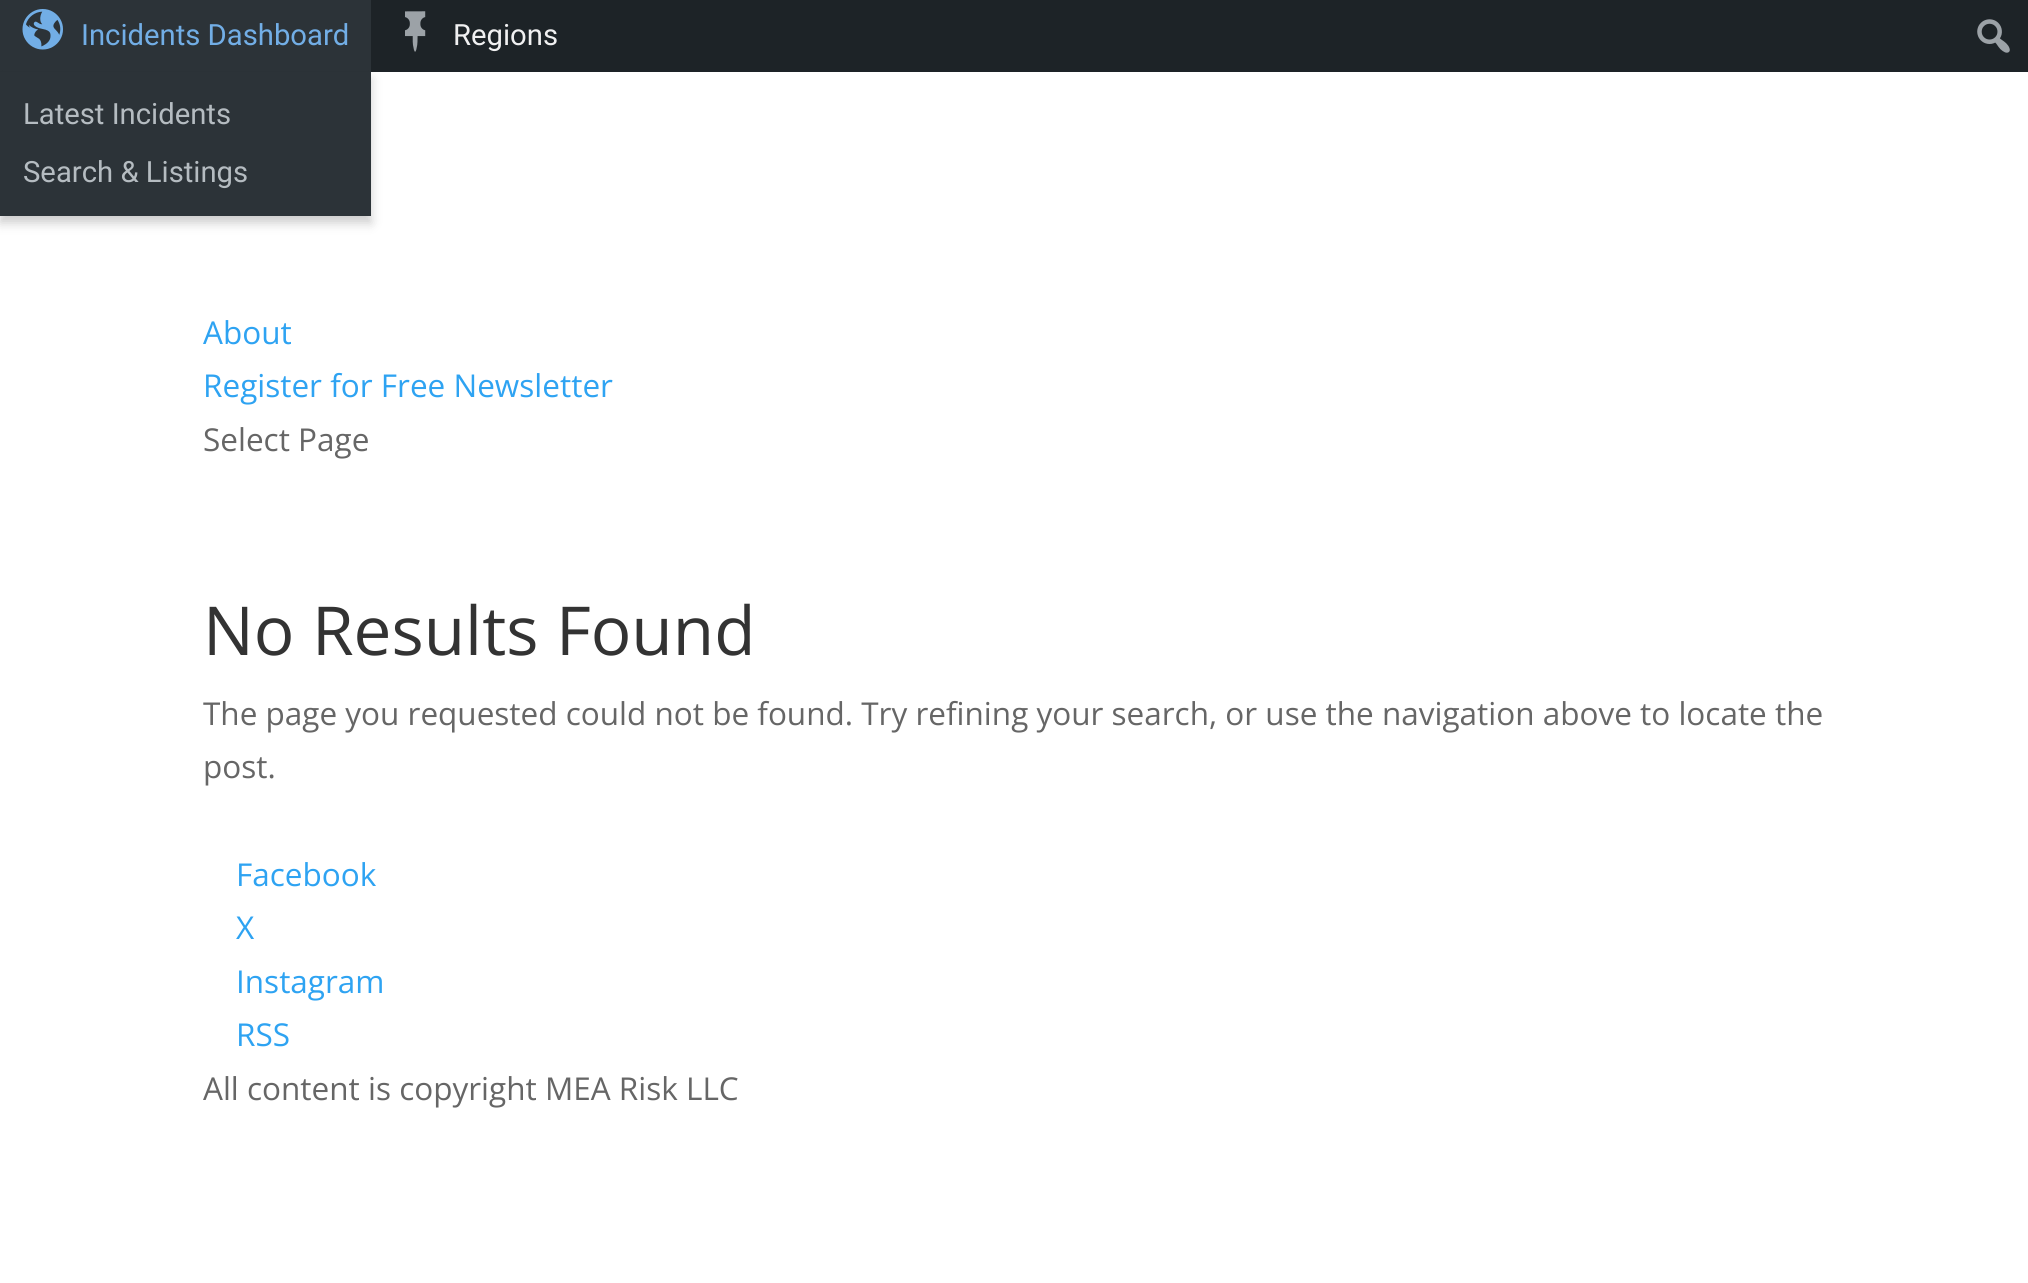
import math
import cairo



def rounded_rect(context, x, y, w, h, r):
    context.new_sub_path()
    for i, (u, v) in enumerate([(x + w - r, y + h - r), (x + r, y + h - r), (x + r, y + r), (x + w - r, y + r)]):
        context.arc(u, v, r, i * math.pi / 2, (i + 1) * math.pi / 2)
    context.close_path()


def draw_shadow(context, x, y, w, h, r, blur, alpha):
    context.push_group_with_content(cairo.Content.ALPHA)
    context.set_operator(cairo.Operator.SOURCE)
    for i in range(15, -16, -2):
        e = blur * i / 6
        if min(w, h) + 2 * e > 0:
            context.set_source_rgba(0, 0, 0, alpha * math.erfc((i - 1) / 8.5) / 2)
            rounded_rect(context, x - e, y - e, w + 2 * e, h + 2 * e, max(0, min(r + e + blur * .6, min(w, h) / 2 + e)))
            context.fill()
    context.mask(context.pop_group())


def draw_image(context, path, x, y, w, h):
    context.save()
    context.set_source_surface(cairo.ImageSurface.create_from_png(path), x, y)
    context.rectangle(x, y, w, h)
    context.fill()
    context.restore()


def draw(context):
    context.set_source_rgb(1, 1, 1)
    context.paint()
    context.set_source_rgb(29 / 255, 35 / 255, 39 / 255)
    context.rectangle(371, 0, 1657, 72)
    context.fill()
    context.set_source_rgb(44 / 255, 51 / 255, 56 / 255)
    context.rectangle(0, 0, 371, 72)
    context.fill()
    draw_image(context, "images/1.png", 22, 9, 41, 41)
    context.set_source_rgb(0, 0, 0)
    draw_shadow(context, 0, 79, 371, 144, 0, 5.5, 0.2)
    context.set_source_rgb(44 / 255, 51 / 255, 56 / 255)
    context.rectangle(0, 72, 371, 144)
    context.fill()
    draw_image(context, "images/2.png", 405, 11, 21, 41)
    draw_image(context, "images/3.png", 1977, 19, 33, 34)
    context.select_font_face("Roboto")
    context.set_font_size(29.25)
    context.set_source_rgb(114 / 255, 174 / 255, 230 / 255)
    context.move_to(81, 45)
    context.show_text("Incidents Dashboard")
    context.set_source_rgb(181 / 255, 188 / 255, 193 / 255)
    context.move_to(23, 124)
    context.show_text("Latest Incidents")
    context.move_to(23, 182)
    context.show_text("Search & Listings")
    context.set_source_rgb(240 / 255, 240 / 255, 241 / 255)
    context.move_to(453, 45)
    context.show_text("Regions")
    context.select_font_face("Open Sans")
    context.set_font_size(31.5)
    context.set_source_rgb(46 / 255, 163 / 255, 242 / 255)
    context.move_to(203, 344)
    context.show_text("About")
    context.move_to(203, 397)
    context.show_text("Register for Free Newsletter")
    context.set_source_rgb(102 / 255, 102 / 255, 102 / 255)
    context.move_to(203, 451)
    context.show_text("Select Page")
    context.set_font_size(67.5)
    context.set_source_rgb(51 / 255, 51 / 255, 51 / 255)
    context.move_to(203, 655)
    context.show_text("No Results Found")
    context.set_font_size(31.5)
    context.set_source_rgb(102 / 255, 102 / 255, 102 / 255)
    context.move_to(203, 725)
    context.show_text("The page you requested could not be found. Try refining your search, or use the navigation above to locate the")
    context.move_to(203, 778)
    context.show_text("post.")
    context.set_source_rgb(46 / 255, 163 / 255, 242 / 255)
    context.move_to(236, 886)
    context.show_text("Facebook")
    context.move_to(236, 939)
    context.show_text("X")
    context.move_to(236, 993)
    context.show_text("Instagram")
    context.move_to(236, 1046)
    context.show_text("RSS")
    context.set_source_rgb(102 / 255, 102 / 255, 102 / 255)
    context.move_to(203, 1100)
    context.show_text("All content is copyright MEA Risk LLC")


surface = cairo.ImageSurface(cairo.Format.RGB24, 2028, 1283)
context = cairo.Context(surface)
options = cairo.FontOptions()
options.set_hint_metrics(cairo.HintMetrics.OFF)
options.set_hint_style(cairo.HintStyle.NONE)
context.set_font_options(options)
context.set_miter_limit(4)
draw(context)
surface.write_to_png("out.png")
